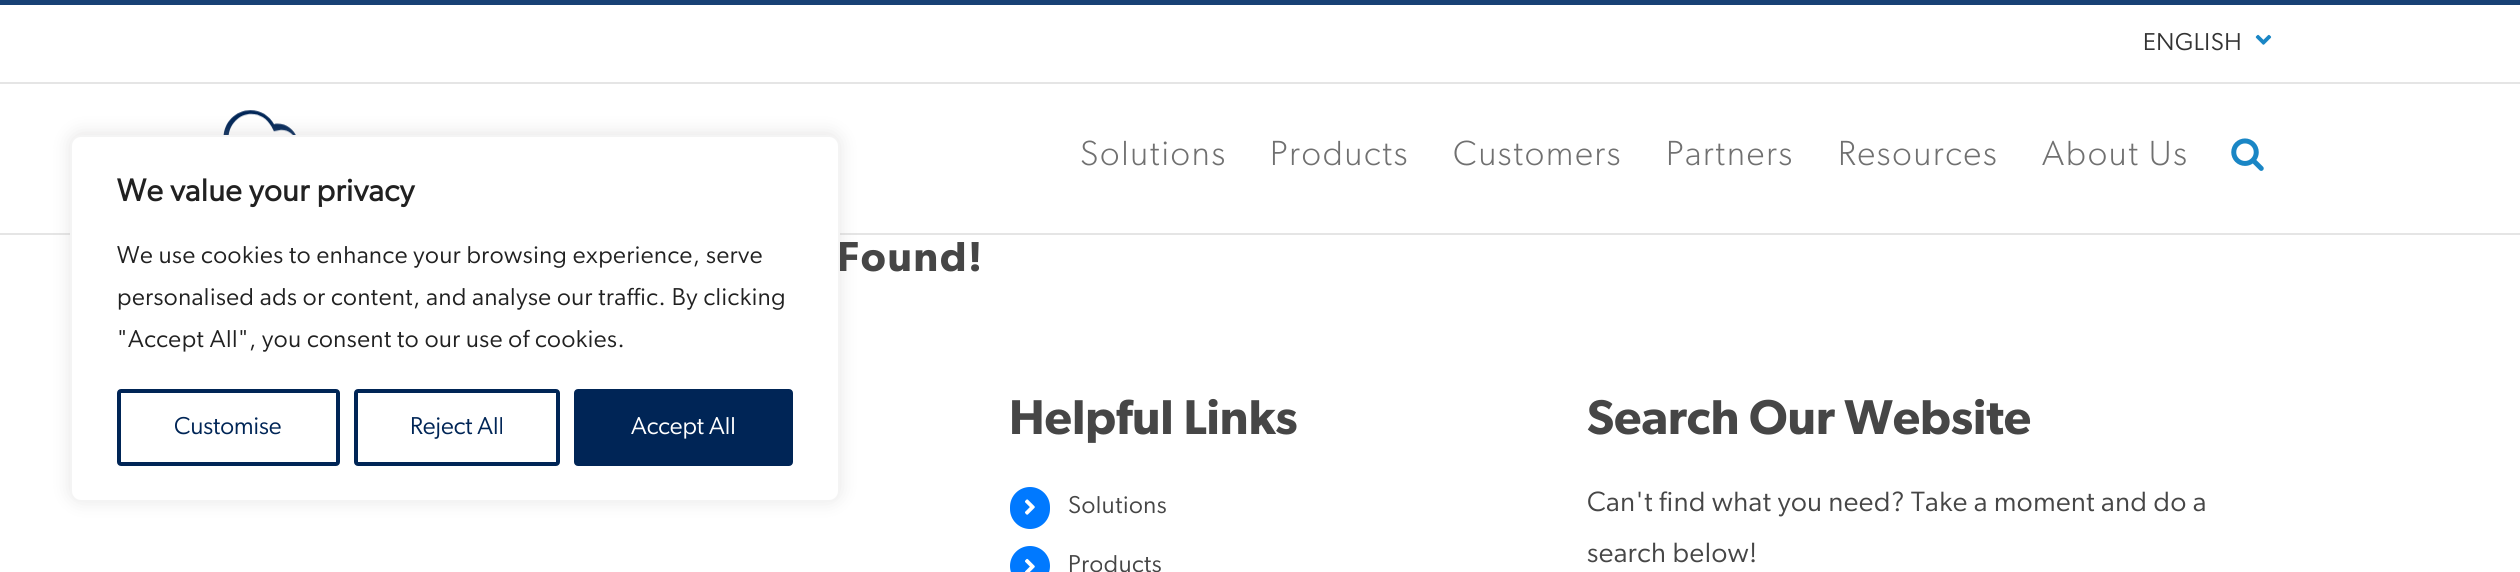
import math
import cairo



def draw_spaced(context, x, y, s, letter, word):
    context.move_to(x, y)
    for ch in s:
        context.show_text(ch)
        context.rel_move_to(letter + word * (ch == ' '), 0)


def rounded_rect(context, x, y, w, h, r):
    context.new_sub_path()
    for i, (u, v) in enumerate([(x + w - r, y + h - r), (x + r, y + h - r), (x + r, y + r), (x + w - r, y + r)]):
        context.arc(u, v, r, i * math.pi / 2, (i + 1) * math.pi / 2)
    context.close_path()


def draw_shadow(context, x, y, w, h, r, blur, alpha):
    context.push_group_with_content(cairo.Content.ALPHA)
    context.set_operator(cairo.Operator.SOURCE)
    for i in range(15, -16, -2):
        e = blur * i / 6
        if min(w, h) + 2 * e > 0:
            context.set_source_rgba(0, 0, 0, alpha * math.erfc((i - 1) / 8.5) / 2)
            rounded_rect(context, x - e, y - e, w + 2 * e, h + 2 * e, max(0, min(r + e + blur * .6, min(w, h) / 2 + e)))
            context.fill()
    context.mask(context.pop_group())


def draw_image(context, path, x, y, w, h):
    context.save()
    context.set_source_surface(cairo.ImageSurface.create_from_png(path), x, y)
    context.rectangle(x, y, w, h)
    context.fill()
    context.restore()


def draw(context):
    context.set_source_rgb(1, 1, 1)
    context.paint()
    context.set_source_rgb(229 / 255, 229 / 255, 229 / 255)
    context.rectangle(0, 233, 2520, 2)
    context.fill()
    draw_image(context, "images/2.png", 223, 110, 73, 25)
    context.set_source_rgb(172 / 255, 171 / 255, 171 / 255)
    draw_shadow(context, 70, 133, 770, 368, 11, 9, 0.3)
    context.set_source_rgb(24 / 255, 65 / 255, 117 / 255)
    context.rectangle(0, 0, 2520, 5)
    context.fill()
    context.set_source_rgb(229 / 255, 229 / 255, 229 / 255)
    context.rectangle(0, 82, 2520, 2)
    context.fill()
    draw_image(context, "images/1.png", 2255, 34, 17, 11)
    draw_image(context, "images/3.png", 2231, 138, 33, 33)
    context.set_source_rgb(0, 121 / 255, 1)
    rounded_rect(context, 1010, 487, 40, 42, 20)
    context.fill()
    draw_image(context, "images/4.png", 1025, 499, 10, 16)
    context.arc(1030, 566, 20, 0, 2 * math.pi)
    context.fill()
    draw_image(context, "images/5.png", 1025, 558, 10, 14)
    context.select_font_face("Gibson")
    context.set_font_size(24.5)
    context.set_source_rgb(51 / 255, 51 / 255, 51 / 255)
    draw_spaced(context, 2143, 50, "ENGLISH", 0.55, 0)
    context.select_font_face("Gibson Light")
    context.set_font_size(35)
    context.set_source_rgb(112 / 255, 112 / 255, 112 / 255)
    draw_spaced(context, 1080, 165, "Solutions", 1.75, 0)
    draw_spaced(context, 1270, 165, "Products", 1.75, 0)
    draw_spaced(context, 1453, 165, "Customers", 1.75, 0)
    draw_spaced(context, 1666, 165, "Partners", 1.75, 0)
    draw_spaced(context, 1838, 165, "Resources", 1.75, 0)
    draw_spaced(context, 2042, 165, "About Us", 1.75, 0)
    context.select_font_face("Gibson SemiBold")
    context.set_font_size(42)
    context.set_source_rgb(70 / 255, 70 / 255, 70 / 255)
    draw_spaced(context, 837, 271, "Found!", 1.75, 0)
    context.set_source_rgb(1, 1, 1)
    rounded_rect(context, 71, 136, 768, 365, 10)
    context.fill_preserve()
    context.set_source_rgb(244 / 255, 244 / 255, 244 / 255)
    context.stroke()
    context.set_source_rgb(0, 37 / 255, 86 / 255)
    rounded_rect(context, 576, 391, 215, 73, 2)
    context.fill_preserve()
    context.set_line_width(4)
    context.stroke()
    context.select_font_face("Gibson")
    context.set_font_size(24.5)
    context.set_source_rgb(1, 1, 1)
    context.move_to(631, 434)
    context.show_text("Accept All")
    rounded_rect(context, 356, 391, 202, 73, 2)
    context.set_source_rgb(0, 37 / 255, 86 / 255)
    context.stroke()
    context.move_to(410, 434)
    context.show_text("Reject All")
    rounded_rect(context, 119, 391, 219, 73, 2)
    context.stroke()
    context.move_to(174, 434)
    context.show_text("Customise")
    context.set_source_rgb(33 / 255, 33 / 255, 33 / 255)
    draw_spaced(context, 117, 347, "\"Accept All\", you consent to our use of cookies.", 0.55, 0)
    draw_spaced(context, 117, 305, "personalised ads or content, and analyse our traffic. By clicking", 0.55, 0)
    draw_spaced(context, 117, 263, "We use cookies to enhance your browsing experience, serve", 0.55, 0)
    context.select_font_face("Gibson", cairo.FontSlant.NORMAL, cairo.FontWeight.BOLD)
    context.set_font_size(31.5)
    draw_spaced(context, 117, 201, "We value your privacy", 0.55, 0)
    context.select_font_face("Gibson SemiBold")
    context.set_font_size(49)
    context.set_source_rgb(70 / 255, 70 / 255, 70 / 255)
    context.move_to(1009, 434)
    context.show_text("Helpful Links")
    context.select_font_face("Gibson")
    context.set_font_size(24.5)
    draw_spaced(context, 1068, 513, "Solutions", 0.55, 0)
    draw_spaced(context, 1068, 572, "Products", 0.55, 0)
    context.select_font_face("Gibson SemiBold")
    context.set_font_size(49)
    context.move_to(1587, 434)
    context.show_text("Search Our Website")
    context.select_font_face("Gibson")
    context.set_font_size(28)
    draw_spaced(context, 1587, 511, "Can't find what you need? Take a moment and do a", 0.55, 0)
    draw_spaced(context, 1587, 562, "search below!", 0.55, 0)


surface = cairo.ImageSurface(cairo.Format.RGB24, 2520, 572)
context = cairo.Context(surface)
options = cairo.FontOptions()
options.set_hint_metrics(cairo.HintMetrics.OFF)
options.set_hint_style(cairo.HintStyle.NONE)
context.set_font_options(options)
context.set_miter_limit(4)
draw(context)
surface.write_to_png("out.png")
